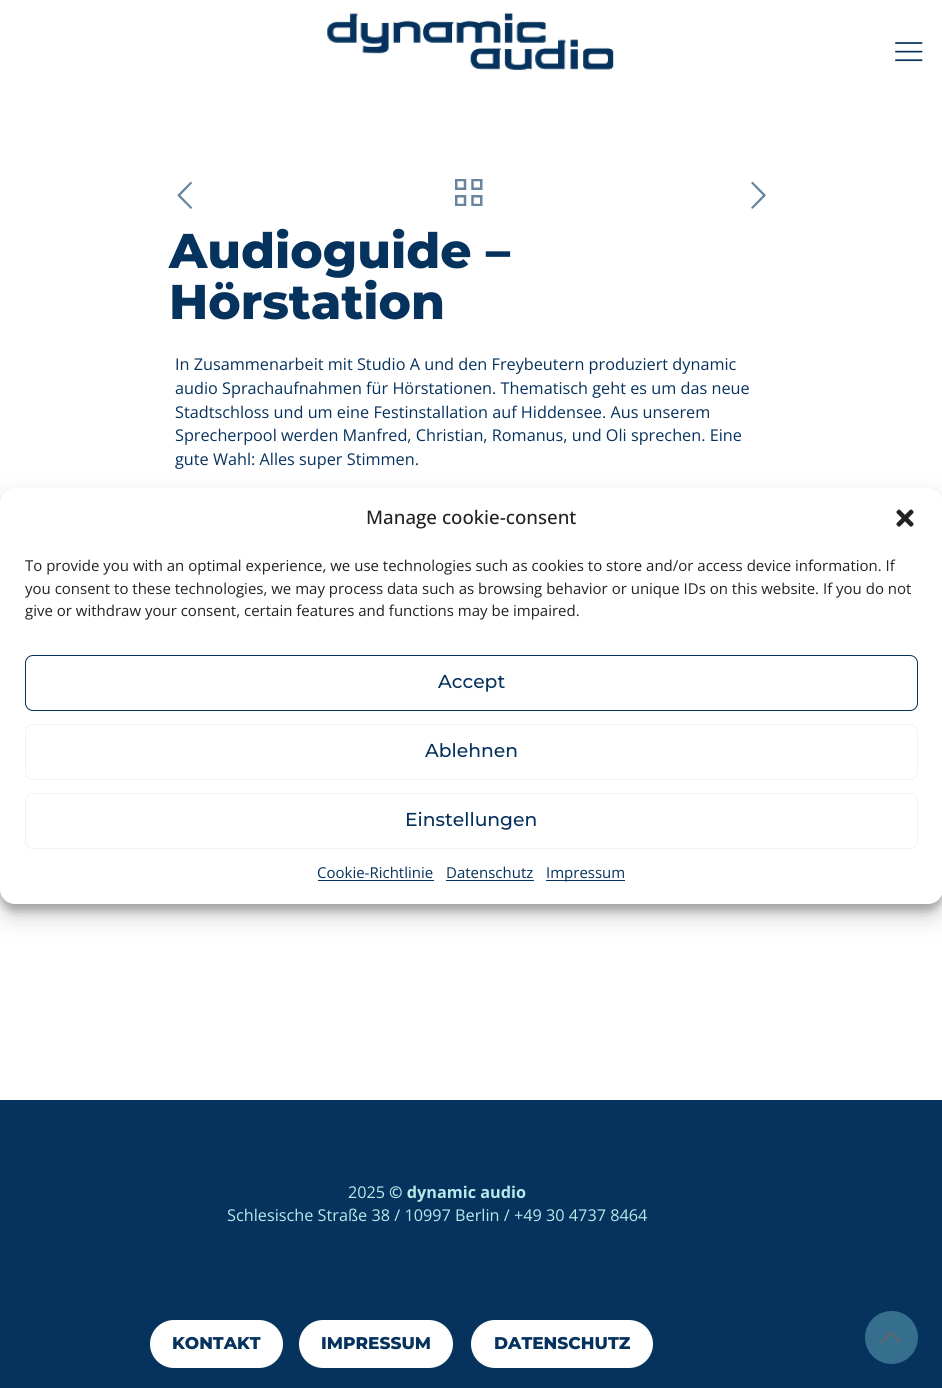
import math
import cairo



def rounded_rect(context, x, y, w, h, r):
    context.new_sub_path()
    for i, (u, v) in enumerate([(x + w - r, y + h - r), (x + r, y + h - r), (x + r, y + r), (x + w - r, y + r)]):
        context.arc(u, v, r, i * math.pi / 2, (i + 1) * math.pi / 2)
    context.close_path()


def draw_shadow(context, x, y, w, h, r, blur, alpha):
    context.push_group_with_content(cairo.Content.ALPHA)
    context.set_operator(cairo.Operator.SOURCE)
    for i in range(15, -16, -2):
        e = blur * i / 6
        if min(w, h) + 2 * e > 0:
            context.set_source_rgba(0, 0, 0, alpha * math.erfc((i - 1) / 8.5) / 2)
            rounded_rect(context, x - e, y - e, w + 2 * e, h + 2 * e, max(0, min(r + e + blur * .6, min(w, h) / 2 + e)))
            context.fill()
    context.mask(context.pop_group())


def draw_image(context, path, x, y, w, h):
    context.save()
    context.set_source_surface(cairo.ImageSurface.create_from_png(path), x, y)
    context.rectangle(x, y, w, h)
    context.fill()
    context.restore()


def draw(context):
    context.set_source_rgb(1, 1, 1)
    context.paint()
    draw_image(context, "images/1.png", 327, 13, 287, 57)
    draw_image(context, "images/2.png", 895, 42, 28, 20)
    draw_image(context, "images/3.png", 177, 181, 15, 28)
    draw_image(context, "images/4.png", 455, 179, 28, 27)
    draw_image(context, "images/5.png", 751, 181, 15, 28)
    context.set_source_rgb(6 / 255, 50 / 255, 94 / 255)
    context.rectangle(0, 1100, 942, 288)
    context.fill()
    context.set_source_rgb(1, 1, 1)
    rounded_rect(context, 150, 1320, 133, 48, 24)
    context.fill()
    rounded_rect(context, 299, 1320, 154, 48, 24)
    context.fill()
    rounded_rect(context, 471, 1320, 182, 48, 24)
    context.fill()
    context.set_source_rgb(0, 0, 0)
    draw_shadow(context, 0, 495, 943, 416, 15, 4, 0.23)
    draw_shadow(context, 0, 500, 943, 416, 15, 12.5, 0.19)
    context.set_source_rgb(1, 1, 1)
    rounded_rect(context, 0, 488, 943, 416, 15)
    context.fill()
    draw_image(context, "images/6.png", 896, 509, 18, 18)
    rounded_rect(context, 25.5, 655.5, 892, 55, 7.5)
    context.set_source_rgb(6 / 255, 50 / 255, 94 / 255)
    context.set_line_width(1)
    context.stroke()
    rounded_rect(context, 25.5, 724.5, 892, 55, 7.5)
    context.set_source_rgb(242 / 255, 242 / 255, 242 / 255)
    context.stroke()
    rounded_rect(context, 25.5, 793.5, 892, 55, 7.5)
    context.stroke()
    context.set_source_rgb(6 / 255, 50 / 255, 94 / 255)
    context.rectangle(318, 880, 116, 1)
    context.fill()
    context.rectangle(446, 880, 88, 1)
    context.fill()
    context.rectangle(546, 880, 79, 1)
    context.fill()
    context.set_source_rgb(54 / 255, 111 / 255, 141 / 255)
    context.arc(891.5, 1337.5, 26.5, 0, 2 * math.pi)
    context.fill()
    draw_image(context, "images/7.png", 880, 1331, 22, 13)
    context.select_font_face("Montserrat Thin")
    context.set_font_size(48.75)
    context.set_source_rgb(6 / 255, 50 / 255, 94 / 255)
    context.move_to(169, 268)
    context.show_text("Audioguide –")
    context.move_to(169, 319)
    context.show_text("Hörstation")
    context.select_font_face("Open Sans")
    context.set_font_size(16.25)
    context.move_to(175, 370)
    context.show_text("In Zusammenarbeit mit Studio A und den Freybeutern produziert dynamic")
    context.move_to(175, 394)
    context.show_text("audio Sprachaufnahmen für Hörstationen. Thematisch geht es um das neue")
    context.move_to(175, 418)
    context.show_text("Stadtschloss und um eine Festinstallation auf Hiddensee. Aus unserem")
    context.move_to(175, 441)
    context.show_text("Sprecherpool werden Manfred, Christian, Romanus, und Oli sprechen. Eine")
    context.move_to(175, 465)
    context.show_text("gute Wahl: Alles super Stimmen.")
    context.set_source_rgb(180 / 255, 235 / 255, 235 / 255)
    context.move_to(348, 1198)
    context.show_text("2025")
    context.select_font_face("Open Sans", cairo.FontSlant.NORMAL, cairo.FontWeight.BOLD)
    context.move_to(389, 1198)
    context.show_text("© dynamic audio")
    context.select_font_face("Open Sans")
    context.move_to(227, 1221)
    context.show_text("Schlesische Straße 38 / 10997 Berlin / +49 30 4737 8464")
    context.select_font_face("Montserrat Thin")
    context.set_font_size(17)
    context.set_source_rgb(6 / 255, 50 / 255, 94 / 255)
    context.move_to(172, 1349)
    context.show_text("KONTAKT")
    context.move_to(321, 1349)
    context.show_text("IMPRESSUM")
    context.move_to(494, 1349)
    context.show_text("DATENSCHUTZ")
    context.select_font_face("Open Sans Medium")
    context.set_font_size(18.75)
    context.set_source_rgb(34 / 255, 34 / 255, 34 / 255)
    context.move_to(366, 524)
    context.show_text("Manage cookie-consent")
    context.select_font_face("Open Sans")
    context.set_font_size(15)
    context.move_to(25, 571)
    context.show_text("To provide you with an optimal experience, we use technologies such as cookies to store and/or access device information. If")
    context.move_to(25, 594)
    context.show_text("you consent to these technologies, we may process data such as browsing behavior or unique IDs on this website. If you do not")
    context.move_to(25, 616)
    context.show_text("give or withdraw your consent, certain features and functions may be impaired.")
    context.select_font_face("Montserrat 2 Thin")
    context.set_font_size(18.75)
    context.set_source_rgb(6 / 255, 50 / 255, 94 / 255)
    context.move_to(438, 688)
    context.show_text("Accept")
    context.move_to(425, 757)
    context.show_text("Ablehnen")
    context.move_to(405, 826)
    context.show_text("Einstellungen")
    context.select_font_face("Open Sans")
    context.set_font_size(15)
    context.move_to(317, 878)
    context.show_text("Cookie-Richtlinie")
    context.move_to(446, 878)
    context.show_text("Datenschutz")
    context.move_to(546, 878)
    context.show_text("Impressum")


surface = cairo.ImageSurface(cairo.Format.RGB24, 942, 1388)
context = cairo.Context(surface)
options = cairo.FontOptions()
options.set_hint_metrics(cairo.HintMetrics.OFF)
options.set_hint_style(cairo.HintStyle.NONE)
context.set_font_options(options)
context.set_miter_limit(4)
draw(context)
surface.write_to_png("out.png")
